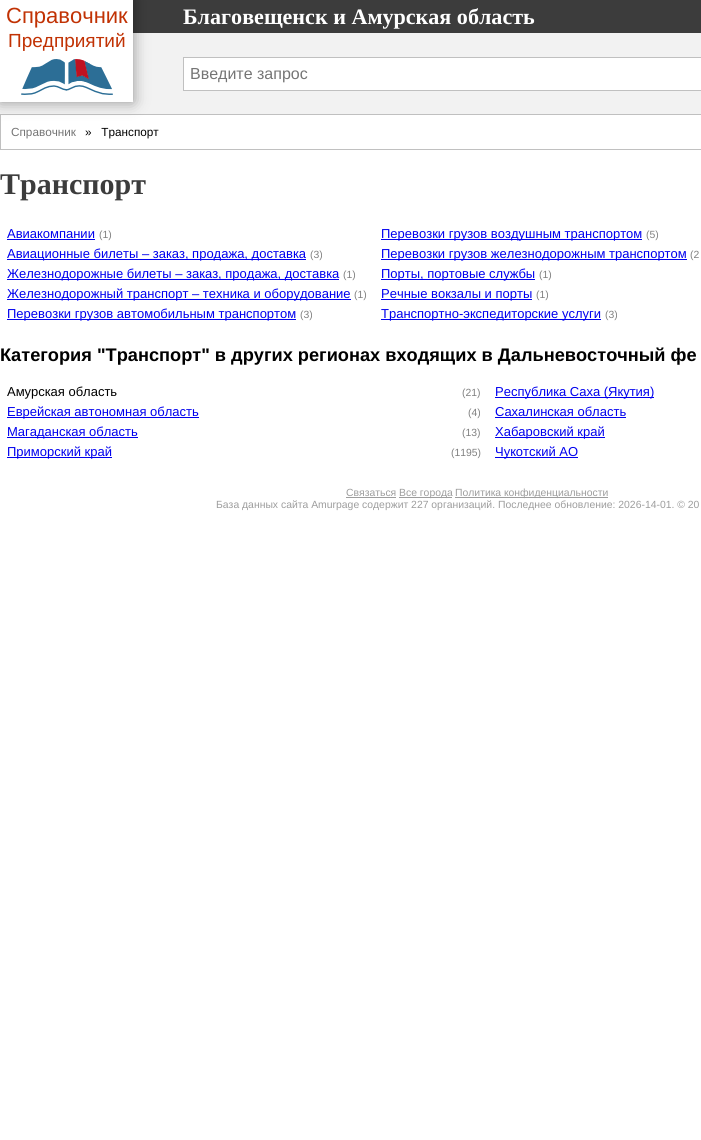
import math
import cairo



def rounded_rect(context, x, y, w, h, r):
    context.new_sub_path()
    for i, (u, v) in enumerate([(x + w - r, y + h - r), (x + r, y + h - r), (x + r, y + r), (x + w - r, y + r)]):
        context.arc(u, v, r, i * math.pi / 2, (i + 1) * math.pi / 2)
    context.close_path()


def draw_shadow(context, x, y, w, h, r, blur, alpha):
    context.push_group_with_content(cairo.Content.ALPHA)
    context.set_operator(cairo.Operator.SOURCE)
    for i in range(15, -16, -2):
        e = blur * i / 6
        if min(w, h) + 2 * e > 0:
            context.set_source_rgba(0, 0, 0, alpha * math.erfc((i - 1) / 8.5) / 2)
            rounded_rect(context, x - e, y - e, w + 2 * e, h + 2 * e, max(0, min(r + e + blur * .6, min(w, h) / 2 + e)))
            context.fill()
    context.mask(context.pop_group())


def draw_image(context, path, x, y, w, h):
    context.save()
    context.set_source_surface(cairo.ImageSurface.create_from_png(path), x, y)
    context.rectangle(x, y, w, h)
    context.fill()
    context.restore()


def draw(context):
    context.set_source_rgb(1, 1, 1)
    context.paint()
    context.set_source_rgb(60 / 255, 60 / 255, 60 / 255)
    context.rectangle(133, 0, 568, 33)
    context.fill()
    context.set_source_rgb(242 / 255, 242 / 255, 242 / 255)
    context.rectangle(0, 33, 701, 81)
    context.fill()
    context.set_source_rgb(192 / 255, 192 / 255, 192 / 255)
    context.rectangle(0, 114, 701, 1)
    context.fill()
    context.rectangle(0, 149, 701, 1)
    context.fill()
    context.rectangle(0, 115, 1, 35)
    context.fill()
    context.set_source_rgb(0, 0, 0)
    draw_shadow(context, 0, 0, 133, 102, 0, 7.5, 0.4)
    context.set_source_rgb(1, 1, 1)
    context.rectangle(0, 0, 133, 102)
    context.fill()
    draw_image(context, "images/1.png", 21, 59, 92, 36)
    context.rectangle(184, 58, 517, 32)
    context.fill()
    context.set_source_rgb(192 / 255, 192 / 255, 192 / 255)
    context.rectangle(183, 57, 518, 1)
    context.fill()
    context.rectangle(183, 90, 518, 1)
    context.fill()
    context.rectangle(183, 57, 1, 34)
    context.fill()
    context.set_source_rgb(0, 0, 238 / 255)
    context.rectangle(7, 239, 88, 1)
    context.fill()
    context.rectangle(7, 259, 299, 1)
    context.fill()
    context.rectangle(7, 279, 332, 1)
    context.fill()
    context.rectangle(7, 299, 344, 1)
    context.fill()
    context.rectangle(7, 319, 289, 1)
    context.fill()
    context.rectangle(381, 239, 261, 1)
    context.fill()
    context.rectangle(381, 259, 306, 1)
    context.fill()
    context.rectangle(381, 279, 154, 1)
    context.fill()
    context.rectangle(381, 299, 151, 1)
    context.fill()
    context.rectangle(381, 319, 220, 1)
    context.fill()
    context.rectangle(7, 417, 192, 1)
    context.fill()
    context.rectangle(7, 437, 131, 1)
    context.fill()
    context.rectangle(7, 457, 105, 1)
    context.fill()
    context.rectangle(495, 397, 159, 1)
    context.fill()
    context.rectangle(495, 417, 131, 1)
    context.fill()
    context.rectangle(495, 437, 110, 1)
    context.fill()
    context.rectangle(495, 457, 83, 1)
    context.fill()
    context.set_source_rgb(157 / 255, 157 / 255, 157 / 255)
    context.rectangle(346, 497, 50, 1)
    context.fill()
    context.rectangle(399, 497, 53, 1)
    context.fill()
    context.rectangle(455, 497, 153, 1)
    context.fill()
    context.select_font_face("Liberation Sans")
    context.set_font_size(22)
    context.set_source_rgb(193 / 255, 50 / 255, 4 / 255)
    context.move_to(6, 23)
    context.show_text("Справочник")
    context.set_font_size(19)
    context.move_to(8, 47)
    context.show_text("Предприятий")
    context.select_font_face("Liberation Serif", cairo.FontSlant.NORMAL, cairo.FontWeight.BOLD)
    context.set_font_size(22.1)
    context.set_source_rgb(1, 1, 1)
    context.move_to(183, 24)
    context.show_text("Благовещенск и Амурская область")
    context.select_font_face("Liberation Sans")
    context.set_font_size(16)
    context.set_source_rgb(117 / 255, 117 / 255, 117 / 255)
    context.move_to(190, 79)
    context.show_text("Введите запрос")
    context.set_font_size(11.75)
    context.move_to(11, 136)
    context.show_text("Справочник")
    context.set_source_rgb(0, 0, 0)
    context.move_to(85, 136)
    context.show_text("»   Транспорт")
    context.select_font_face("Liberation Serif", cairo.FontSlant.NORMAL, cairo.FontWeight.BOLD)
    context.set_font_size(30)
    context.set_source_rgb(60 / 255, 60 / 255, 60 / 255)
    context.move_to(0, 194)
    context.show_text("Транспорт")
    context.select_font_face("Liberation Sans")
    context.set_font_size(13)
    context.set_source_rgb(0, 0, 238 / 255)
    context.move_to(7, 238)
    context.show_text("Авиакомпании")
    context.set_font_size(10.4)
    context.set_source_rgb(128 / 255, 128 / 255, 128 / 255)
    context.move_to(99, 238)
    context.show_text("(1)")
    context.set_font_size(13)
    context.set_source_rgb(0, 0, 238 / 255)
    context.move_to(7, 258)
    context.show_text("Авиационные билеты – заказ, продажа, доставка")
    context.set_font_size(10.4)
    context.set_source_rgb(128 / 255, 128 / 255, 128 / 255)
    context.move_to(310, 258)
    context.show_text("(3)")
    context.set_font_size(13)
    context.set_source_rgb(0, 0, 238 / 255)
    context.move_to(7, 278)
    context.show_text("Железнодорожные билеты – заказ, продажа, доставка")
    context.set_font_size(10.4)
    context.set_source_rgb(128 / 255, 128 / 255, 128 / 255)
    context.move_to(343, 278)
    context.show_text("(1)")
    context.set_font_size(13)
    context.set_source_rgb(0, 0, 238 / 255)
    context.move_to(7, 298)
    context.show_text("Железнодорожный транспорт – техника и оборудование")
    context.set_font_size(10.4)
    context.set_source_rgb(128 / 255, 128 / 255, 128 / 255)
    context.move_to(354, 298)
    context.show_text("(1)")
    context.set_font_size(13)
    context.set_source_rgb(0, 0, 238 / 255)
    context.move_to(7, 318)
    context.show_text("Перевозки грузов автомобильным транспортом")
    context.set_font_size(10.4)
    context.set_source_rgb(128 / 255, 128 / 255, 128 / 255)
    context.move_to(300, 318)
    context.show_text("(3)")
    context.set_font_size(13)
    context.set_source_rgb(0, 0, 238 / 255)
    context.move_to(381, 238)
    context.show_text("Перевозки грузов воздушным транспортом")
    context.set_font_size(10.4)
    context.set_source_rgb(128 / 255, 128 / 255, 128 / 255)
    context.move_to(646, 238)
    context.show_text("(5)")
    context.set_font_size(13)
    context.set_source_rgb(0, 0, 238 / 255)
    context.move_to(381, 258)
    context.show_text("Перевозки грузов железнодорожным транспортом")
    context.set_font_size(10.4)
    context.set_source_rgb(128 / 255, 128 / 255, 128 / 255)
    context.move_to(690, 258)
    context.show_text("(2")
    context.set_font_size(13)
    context.set_source_rgb(0, 0, 238 / 255)
    context.move_to(381, 278)
    context.show_text("Порты, портовые службы")
    context.set_font_size(10.4)
    context.set_source_rgb(128 / 255, 128 / 255, 128 / 255)
    context.move_to(539, 278)
    context.show_text("(1)")
    context.set_font_size(13)
    context.set_source_rgb(0, 0, 238 / 255)
    context.move_to(381, 298)
    context.show_text("Речные вокзалы и порты")
    context.set_font_size(10.4)
    context.set_source_rgb(128 / 255, 128 / 255, 128 / 255)
    context.move_to(536, 298)
    context.show_text("(1)")
    context.set_font_size(13)
    context.set_source_rgb(0, 0, 238 / 255)
    context.move_to(381, 318)
    context.show_text("Транспортно-экспедиторские услуги")
    context.set_font_size(10.4)
    context.set_source_rgb(128 / 255, 128 / 255, 128 / 255)
    context.move_to(605, 318)
    context.show_text("(3)")
    context.select_font_face("Liberation Sans", cairo.FontSlant.NORMAL, cairo.FontWeight.BOLD)
    context.set_font_size(18.2)
    context.set_source_rgb(0, 0, 0)
    context.move_to(0, 361)
    context.show_text("Категория \"Транспорт\" в других регионах входящих в Дальневосточный фе")
    context.select_font_face("Liberation Sans")
    context.set_font_size(13)
    context.move_to(7, 396)
    context.show_text("Амурская область")
    context.set_font_size(10.4)
    context.set_source_rgb(128 / 255, 128 / 255, 128 / 255)
    context.move_to(462, 396)
    context.show_text("(21)")
    context.set_font_size(13)
    context.set_source_rgb(0, 0, 238 / 255)
    context.move_to(7, 416)
    context.show_text("Еврейская автономная область")
    context.set_font_size(10.4)
    context.set_source_rgb(128 / 255, 128 / 255, 128 / 255)
    context.move_to(468, 416)
    context.show_text("(4)")
    context.set_font_size(13)
    context.set_source_rgb(0, 0, 238 / 255)
    context.move_to(7, 436)
    context.show_text("Магаданская область")
    context.set_font_size(10.4)
    context.set_source_rgb(128 / 255, 128 / 255, 128 / 255)
    context.move_to(462, 436)
    context.show_text("(13)")
    context.set_font_size(13)
    context.set_source_rgb(0, 0, 238 / 255)
    context.move_to(7, 456)
    context.show_text("Приморский край")
    context.set_font_size(10.4)
    context.set_source_rgb(128 / 255, 128 / 255, 128 / 255)
    context.move_to(451, 456)
    context.show_text("(1195)")
    context.set_font_size(13)
    context.set_source_rgb(0, 0, 238 / 255)
    context.move_to(495, 396)
    context.show_text("Республика Саха (Якутия)")
    context.move_to(495, 416)
    context.show_text("Сахалинская область")
    context.move_to(495, 436)
    context.show_text("Хабаровский край")
    context.move_to(495, 456)
    context.show_text("Чукотский АО")
    context.set_font_size(10.4)
    context.set_source_rgb(157 / 255, 157 / 255, 157 / 255)
    context.move_to(346, 496)
    context.show_text("Связаться")
    context.move_to(399, 496)
    context.show_text("Все города")
    context.move_to(455, 496)
    context.show_text("Политика конфиденциальности")
    context.move_to(216, 508)
    context.show_text("База данных сайта Amurpage содержит 227 организаций. Последнее обновление: 2026-14-01. © 20")


surface = cairo.ImageSurface(cairo.Format.RGB24, 701, 1140)
context = cairo.Context(surface)
options = cairo.FontOptions()
options.set_hint_metrics(cairo.HintMetrics.OFF)
options.set_hint_style(cairo.HintStyle.NONE)
context.set_font_options(options)
context.set_miter_limit(4)
draw(context)
surface.write_to_png("out.png")
